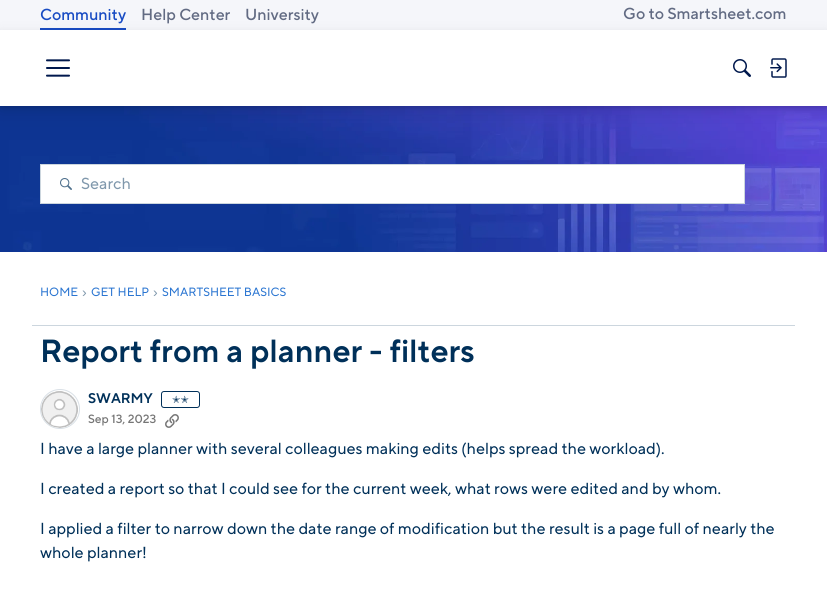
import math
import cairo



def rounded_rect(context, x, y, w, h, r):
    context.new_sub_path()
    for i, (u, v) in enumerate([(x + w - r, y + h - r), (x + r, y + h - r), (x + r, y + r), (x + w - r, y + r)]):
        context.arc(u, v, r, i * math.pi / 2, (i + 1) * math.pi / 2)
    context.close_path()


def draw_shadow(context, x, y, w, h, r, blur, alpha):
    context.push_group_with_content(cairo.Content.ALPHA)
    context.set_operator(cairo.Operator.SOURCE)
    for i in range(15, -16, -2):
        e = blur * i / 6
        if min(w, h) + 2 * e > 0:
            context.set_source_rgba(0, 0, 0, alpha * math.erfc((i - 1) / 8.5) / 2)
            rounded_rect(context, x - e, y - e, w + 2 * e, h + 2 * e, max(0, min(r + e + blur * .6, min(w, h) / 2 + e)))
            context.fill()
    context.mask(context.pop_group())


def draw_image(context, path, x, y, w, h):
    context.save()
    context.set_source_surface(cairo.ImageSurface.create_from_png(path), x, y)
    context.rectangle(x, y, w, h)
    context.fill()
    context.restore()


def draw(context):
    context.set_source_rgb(1, 1, 1)
    context.paint()
    context.set_source_rgb(245 / 255, 246 / 255, 250 / 255)
    context.rectangle(0, 0, 827, 30)
    context.fill()
    context.set_source_rgb(24 / 255, 75 / 255, 195 / 255)
    context.rectangle(40, 28, 86, 2)
    context.fill()
    draw_image(context, "images/4.png", 0, 106, 827, 146)
    context.set_source_rgb(0, 0, 0)
    draw_shadow(context, 0, 36, 827, 76, 0, 8, 0.1)
    draw_shadow(context, 0, 32, 827, 76, 0, 2, 0.12)
    context.set_source_rgb(1, 1, 1)
    context.rectangle(0, 30, 827, 76)
    context.fill()
    draw_image(context, "images/1.png", 46, 59, 24, 18)
    draw_image(context, "images/2.png", 733, 59, 18, 18)
    draw_image(context, "images/3.png", 770, 58, 17, 20)
    context.rectangle(40.5, 164.5, 704, 39)
    context.fill_preserve()
    context.set_source_rgb(204 / 255, 214 / 255, 222 / 255)
    context.set_line_width(1)
    context.stroke()
    draw_image(context, "images/5.png", 60, 178, 12, 12)
    context.rectangle(32, 325, 763, 1)
    context.fill()
    context.arc(60, 409, 19.5, 0, 2 * math.pi)
    context.set_source_rgb(217 / 255, 224 / 255, 230 / 255)
    context.stroke()
    draw_image(context, "images/6.png", 41, 391, 37, 37)
    rounded_rect(context, 161.5, 391.5, 38, 16, 2.5)
    context.set_source_rgb(0, 48 / 255, 89 / 255)
    context.stroke()
    draw_image(context, "images/7.png", 165, 414, 14, 14)
    context.select_font_face("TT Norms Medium")
    context.set_font_size(16)
    context.set_source_rgb(24 / 255, 75 / 255, 195 / 255)
    context.move_to(40, 20)
    context.show_text("Community")
    context.set_source_rgb(98 / 255, 107 / 255, 131 / 255)
    context.move_to(141, 20)
    context.show_text("Help Center")
    context.move_to(245, 20)
    context.show_text("University")
    context.move_to(623, 19)
    context.show_text("Go to Smartsheet.com")
    context.select_font_face("TT Norms")
    context.set_source_rgb(128 / 255, 152 / 255, 172 / 255)
    context.move_to(81, 189)
    context.show_text("Search")
    context.set_font_size(12)
    context.set_source_rgb(42 / 255, 117 / 255, 209 / 255)
    context.move_to(40, 296)
    context.show_text("HOME")
    context.select_font_face("Liberation Sans")
    context.set_font_size(14)
    context.set_source_rgb(128 / 255, 152 / 255, 172 / 255)
    context.move_to(82, 297)
    context.show_text("›")
    context.select_font_face("TT Norms")
    context.set_font_size(12)
    context.set_source_rgb(42 / 255, 117 / 255, 209 / 255)
    context.move_to(91, 296)
    context.show_text("GET HELP")
    context.select_font_face("Liberation Sans")
    context.set_font_size(14)
    context.set_source_rgb(128 / 255, 152 / 255, 172 / 255)
    context.move_to(153, 297)
    context.show_text("›")
    context.select_font_face("TT Norms")
    context.set_font_size(12)
    context.set_source_rgb(42 / 255, 117 / 255, 209 / 255)
    context.move_to(162, 296)
    context.show_text("SMARTSHEET BASICS")
    context.select_font_face("TT Norms SemiBold")
    context.set_font_size(32)
    context.set_source_rgb(0, 48 / 255, 89 / 255)
    context.move_to(40, 362)
    context.show_text("Report from a planner - filters")
    context.set_font_size(14)
    context.move_to(88, 403)
    context.show_text("SWARMY")
    context.select_font_face("DejaVu Sans")
    context.set_font_size(10)
    context.move_to(172, 403)
    context.show_text("✭✭")
    context.select_font_face("TT Norms Medium")
    context.set_font_size(12)
    context.set_source_rgb(118 / 255, 118 / 255, 118 / 255)
    context.move_to(88, 423)
    context.show_text("Sep 13, 2023")
    context.select_font_face("TT Norms")
    context.set_font_size(16)
    context.set_source_rgb(0, 48 / 255, 89 / 255)
    context.move_to(40, 454)
    context.show_text("I have a large planner with several colleagues making edits (helps spread the workload).")
    context.move_to(40, 494)
    context.show_text("I created a report so that I could see for the current week, what rows were edited and by whom.")
    context.move_to(40, 534)
    context.show_text("I applied a filter to narrow down the date range of modification but the result is a page full of nearly the")
    context.move_to(40, 558)
    context.show_text("whole planner!")


surface = cairo.ImageSurface(cairo.Format.RGB24, 827, 592)
context = cairo.Context(surface)
options = cairo.FontOptions()
options.set_hint_metrics(cairo.HintMetrics.OFF)
options.set_hint_style(cairo.HintStyle.NONE)
context.set_font_options(options)
context.set_miter_limit(4)
draw(context)
surface.write_to_png("out.png")
